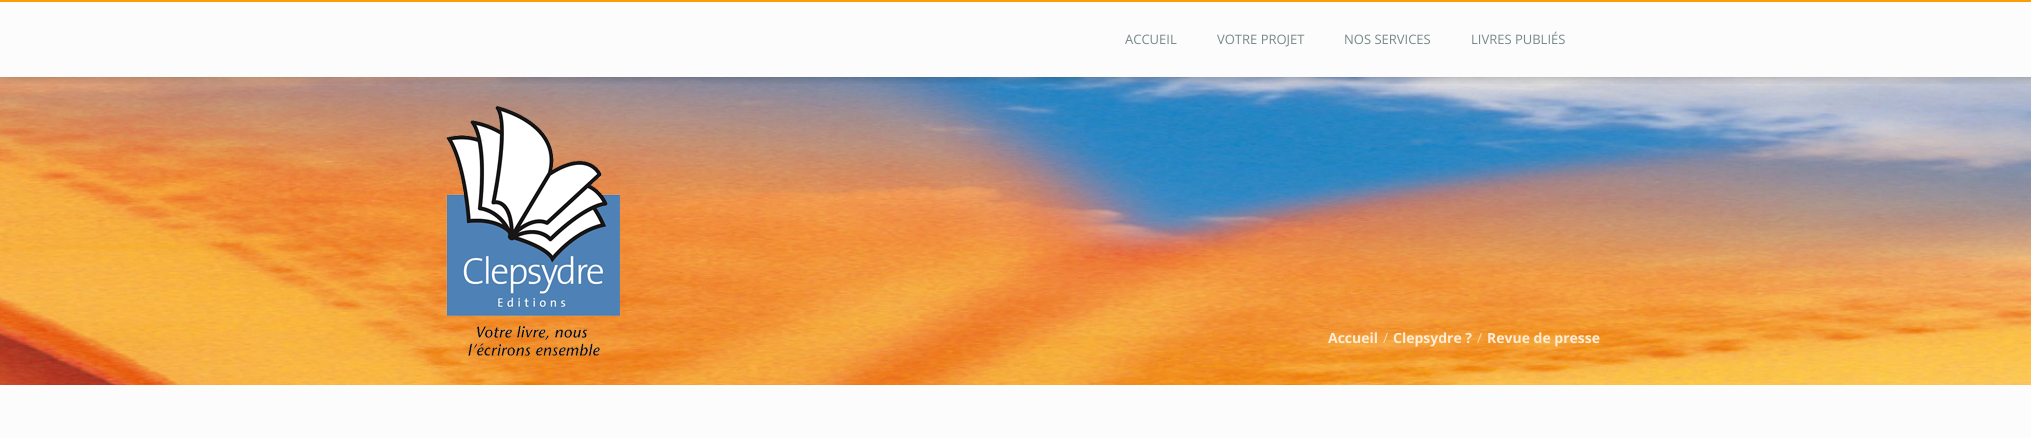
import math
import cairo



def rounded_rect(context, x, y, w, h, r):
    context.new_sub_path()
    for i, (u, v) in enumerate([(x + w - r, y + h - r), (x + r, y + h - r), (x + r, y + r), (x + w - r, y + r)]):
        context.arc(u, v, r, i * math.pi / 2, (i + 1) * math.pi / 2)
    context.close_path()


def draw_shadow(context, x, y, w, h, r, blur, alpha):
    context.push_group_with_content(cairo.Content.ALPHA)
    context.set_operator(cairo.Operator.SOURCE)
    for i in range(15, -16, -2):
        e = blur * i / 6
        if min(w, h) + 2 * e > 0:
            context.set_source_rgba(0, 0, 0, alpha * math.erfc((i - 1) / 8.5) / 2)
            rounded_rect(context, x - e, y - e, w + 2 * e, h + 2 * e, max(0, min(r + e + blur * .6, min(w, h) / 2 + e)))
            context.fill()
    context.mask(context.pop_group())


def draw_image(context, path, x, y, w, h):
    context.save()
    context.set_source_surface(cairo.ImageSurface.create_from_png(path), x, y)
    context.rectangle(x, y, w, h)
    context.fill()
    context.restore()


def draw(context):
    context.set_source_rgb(252 / 255, 252 / 255, 252 / 255)
    context.paint()
    draw_image(context, "images/1.png", 0, 77, 2031, 308)
    context.save()
    context.rectangle(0, 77, 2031, 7)
    context.clip()
    context.set_source_rgb(0, 0, 0)
    draw_shadow(context, 0, 0, 2031, 77, 0, 5, 0.3)
    context.restore()
    context.set_source_rgb(252 / 255, 156 / 255, 5 / 255)
    context.rectangle(0, 0, 2031, 2)
    context.fill()
    draw_image(context, "images/2.png", 446, 106, 174, 250)
    context.select_font_face("Open Sans")
    context.set_font_size(13)
    context.set_source_rgb(119 / 255, 136 / 255, 136 / 255)
    context.move_to(1125, 44)
    context.show_text("ACCUEIL")
    context.move_to(1217, 44)
    context.show_text("VOTRE PROJET")
    context.move_to(1344, 44)
    context.show_text("NOS SERVICES")
    context.move_to(1471, 44)
    context.show_text("LIVRES PUBLIÉS")
    context.select_font_face("Open Sans", cairo.FontSlant.NORMAL, cairo.FontWeight.BOLD)
    context.set_font_size(14)
    context.set_source_rgb(253 / 255, 236 / 255, 216 / 255)
    context.move_to(1328, 343)
    context.show_text("Accueil")
    context.select_font_face("Open Sans")
    context.set_source_rgb(250 / 255, 216 / 255, 176 / 255)
    context.move_to(1383, 343)
    context.show_text("/")
    context.select_font_face("Open Sans", cairo.FontSlant.NORMAL, cairo.FontWeight.BOLD)
    context.set_source_rgb(253 / 255, 236 / 255, 216 / 255)
    context.move_to(1393, 343)
    context.show_text("Clepsydre ?")
    context.select_font_face("Open Sans")
    context.set_source_rgb(250 / 255, 216 / 255, 176 / 255)
    context.move_to(1477, 343)
    context.show_text("/")
    context.select_font_face("Open Sans", cairo.FontSlant.NORMAL, cairo.FontWeight.BOLD)
    context.set_source_rgb(253 / 255, 236 / 255, 216 / 255)
    context.move_to(1487, 343)
    context.show_text("Revue de presse")


surface = cairo.ImageSurface(cairo.Format.RGB24, 2031, 438)
context = cairo.Context(surface)
options = cairo.FontOptions()
options.set_hint_metrics(cairo.HintMetrics.OFF)
options.set_hint_style(cairo.HintStyle.NONE)
context.set_font_options(options)
context.set_miter_limit(4)
draw(context)
surface.write_to_png("out.png")
